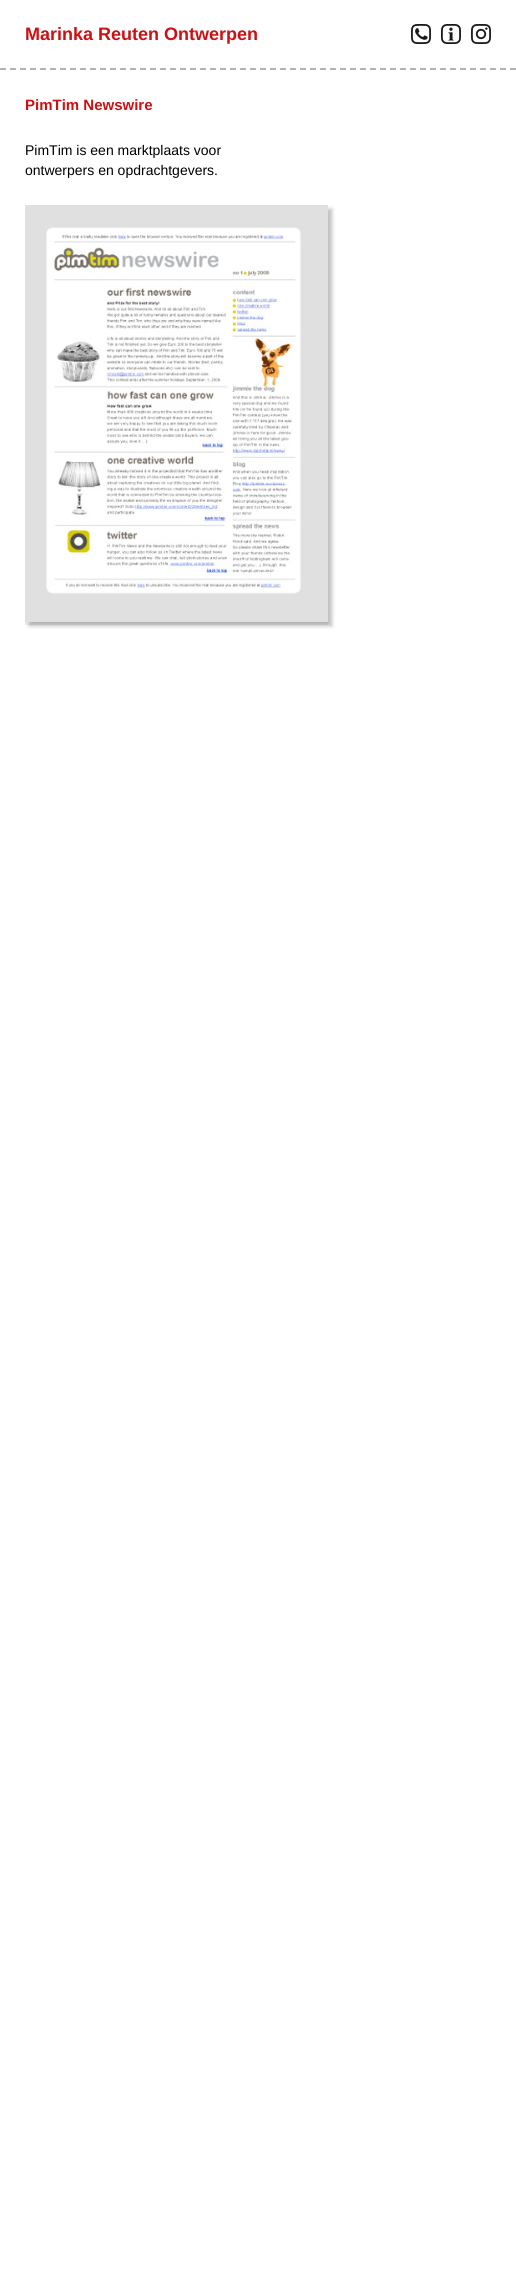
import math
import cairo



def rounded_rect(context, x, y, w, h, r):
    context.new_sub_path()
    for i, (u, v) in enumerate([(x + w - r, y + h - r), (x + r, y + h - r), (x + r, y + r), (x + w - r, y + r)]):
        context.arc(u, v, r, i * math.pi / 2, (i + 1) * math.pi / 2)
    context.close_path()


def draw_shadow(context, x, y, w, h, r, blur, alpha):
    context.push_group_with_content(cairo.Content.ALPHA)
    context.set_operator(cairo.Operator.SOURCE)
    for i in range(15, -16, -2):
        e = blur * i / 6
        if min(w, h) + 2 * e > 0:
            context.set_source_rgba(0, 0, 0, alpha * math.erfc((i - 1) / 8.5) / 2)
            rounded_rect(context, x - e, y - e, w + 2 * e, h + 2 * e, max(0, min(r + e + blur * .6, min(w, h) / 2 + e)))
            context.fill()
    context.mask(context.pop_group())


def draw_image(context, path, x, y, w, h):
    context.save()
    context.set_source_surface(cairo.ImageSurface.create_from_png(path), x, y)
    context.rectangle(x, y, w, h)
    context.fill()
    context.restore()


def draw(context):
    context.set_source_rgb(1, 1, 1)
    context.paint()
    context.new_path()
    context.move_to(0, 69)
    context.line_to(516, 69)
    context.set_source_rgb(177 / 255, 178 / 255, 179 / 255)
    context.set_dash([6, 4])
    context.stroke()
    draw_image(context, "images/1.png", 411, 24, 20, 20)
    draw_image(context, "images/2.png", 441, 24, 20, 20)
    draw_image(context, "images/3.png", 471, 24, 20, 20)
    context.set_source_rgb(238 / 255, 238 / 255, 238 / 255)
    context.rectangle(25, 622, 303, 3)
    context.fill()
    context.set_source_rgb(0, 0, 0)
    draw_shadow(context, 29, 209, 303, 417, 0, 2, 0.25)
    draw_image(context, "images/4.png", 25, 205, 303, 417)
    context.select_font_face("Liberation Sans", cairo.FontSlant.NORMAL, cairo.FontWeight.BOLD)
    context.set_font_size(18)
    context.set_source_rgb(205 / 255, 16 / 255, 19 / 255)
    context.move_to(25, 40)
    context.show_text("Marinka Reuten Ontwerpen")
    context.set_font_size(15)
    context.move_to(25, 110)
    context.show_text("PimTim Newswire")
    context.select_font_face("Liberation Sans")
    context.set_font_size(14)
    context.set_source_rgb(0, 0, 0)
    context.move_to(25, 155)
    context.show_text("PimTim is een marktplaats voor")
    context.move_to(25, 175)
    context.show_text("ontwerpers en opdrachtgevers.")


surface = cairo.ImageSurface(cairo.Format.RGB24, 516, 2274)
context = cairo.Context(surface)
options = cairo.FontOptions()
options.set_hint_metrics(cairo.HintMetrics.OFF)
options.set_hint_style(cairo.HintStyle.NONE)
context.set_font_options(options)
context.set_miter_limit(4)
draw(context)
surface.write_to_png("out.png")
